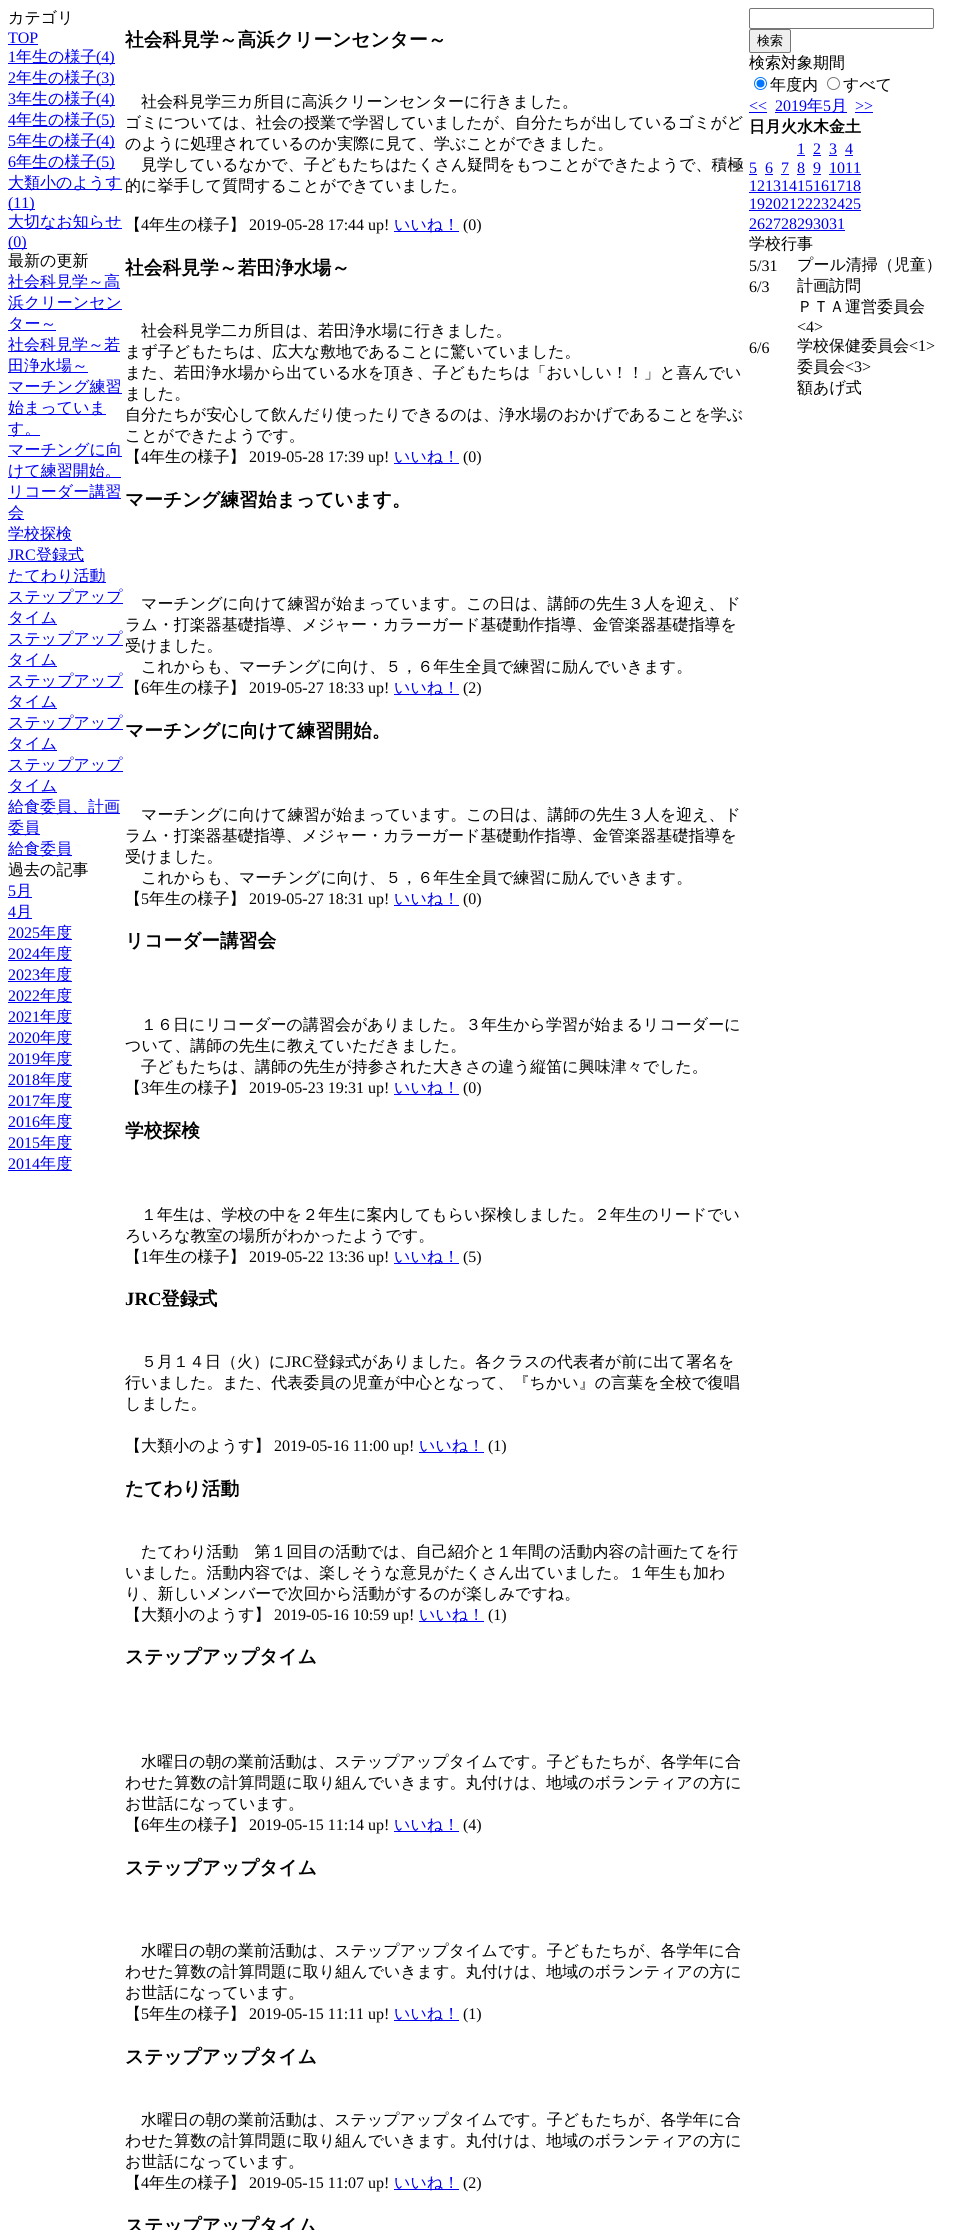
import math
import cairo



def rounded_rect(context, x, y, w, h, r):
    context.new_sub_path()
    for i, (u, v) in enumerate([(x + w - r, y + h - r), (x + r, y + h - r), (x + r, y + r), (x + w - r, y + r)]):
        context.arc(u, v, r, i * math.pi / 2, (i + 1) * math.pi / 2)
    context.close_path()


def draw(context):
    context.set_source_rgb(1, 1, 1)
    context.paint()
    context.set_source_rgb(0, 0, 238 / 255)
    context.rectangle(8, 44, 30, 1)
    context.fill()
    context.rectangle(8, 63, 107, 1)
    context.fill()
    context.rectangle(8, 84, 107, 1)
    context.fill()
    context.rectangle(8, 105, 107, 1)
    context.fill()
    context.rectangle(8, 126, 107, 1)
    context.fill()
    context.rectangle(8, 147, 107, 1)
    context.fill()
    context.rectangle(8, 168, 107, 1)
    context.fill()
    context.rectangle(8, 189, 114, 1)
    context.fill()
    context.rectangle(8, 209, 27, 1)
    context.fill()
    context.rectangle(8, 228, 114, 1)
    context.fill()
    context.rectangle(8, 248, 19, 1)
    context.fill()
    context.rectangle(8, 288, 112, 1)
    context.fill()
    context.rectangle(8, 309, 114, 1)
    context.fill()
    context.rectangle(8, 330, 48, 1)
    context.fill()
    context.rectangle(8, 351, 112, 1)
    context.fill()
    context.rectangle(8, 372, 80, 1)
    context.fill()
    context.rectangle(8, 393, 114, 1)
    context.fill()
    context.rectangle(8, 414, 98, 1)
    context.fill()
    context.rectangle(8, 435, 32, 1)
    context.fill()
    context.rectangle(8, 456, 114, 1)
    context.fill()
    context.rectangle(8, 477, 113, 1)
    context.fill()
    context.rectangle(8, 498, 113, 1)
    context.fill()
    context.rectangle(8, 519, 16, 1)
    context.fill()
    context.rectangle(8, 540, 64, 1)
    context.fill()
    context.rectangle(8, 561, 76, 1)
    context.fill()
    context.rectangle(8, 582, 98, 1)
    context.fill()
    context.rectangle(8, 603, 115, 1)
    context.fill()
    context.rectangle(8, 624, 49, 1)
    context.fill()
    context.rectangle(8, 645, 115, 1)
    context.fill()
    context.rectangle(8, 666, 49, 1)
    context.fill()
    context.rectangle(8, 687, 115, 1)
    context.fill()
    context.rectangle(8, 708, 49, 1)
    context.fill()
    context.rectangle(8, 729, 115, 1)
    context.fill()
    context.rectangle(8, 750, 49, 1)
    context.fill()
    context.rectangle(8, 771, 115, 1)
    context.fill()
    context.rectangle(8, 792, 49, 1)
    context.fill()
    context.rectangle(8, 813, 112, 1)
    context.fill()
    context.rectangle(8, 834, 32, 1)
    context.fill()
    context.rectangle(8, 855, 64, 1)
    context.fill()
    context.rectangle(8, 897, 24, 1)
    context.fill()
    context.rectangle(8, 918, 24, 1)
    context.fill()
    context.rectangle(8, 939, 64, 1)
    context.fill()
    context.rectangle(8, 960, 64, 1)
    context.fill()
    context.rectangle(8, 981, 64, 1)
    context.fill()
    context.rectangle(8, 1002, 64, 1)
    context.fill()
    context.rectangle(8, 1023, 64, 1)
    context.fill()
    context.rectangle(8, 1044, 64, 1)
    context.fill()
    context.rectangle(8, 1065, 64, 1)
    context.fill()
    context.rectangle(8, 1086, 64, 1)
    context.fill()
    context.rectangle(8, 1107, 64, 1)
    context.fill()
    context.rectangle(8, 1128, 64, 1)
    context.fill()
    context.rectangle(8, 1149, 64, 1)
    context.fill()
    context.rectangle(8, 1170, 64, 1)
    context.fill()
    context.rectangle(394, 231, 65, 1)
    context.fill()
    context.rectangle(394, 463, 65, 1)
    context.fill()
    context.rectangle(394, 694, 65, 1)
    context.fill()
    context.rectangle(394, 905, 65, 1)
    context.fill()
    context.rectangle(394, 1094, 65, 1)
    context.fill()
    context.rectangle(394, 1263, 65, 1)
    context.fill()
    context.rectangle(419, 1452, 65, 1)
    context.fill()
    context.rectangle(419, 1621, 65, 1)
    context.fill()
    context.rectangle(394, 1831, 65, 1)
    context.fill()
    context.rectangle(394, 2020, 65, 1)
    context.fill()
    context.rectangle(394, 2189, 65, 1)
    context.fill()
    rounded_rect(context, 749.5, 8.5, 184, 20, 1.5)
    context.set_source_rgb(118 / 255, 118 / 255, 118 / 255)
    context.set_line_width(1)
    context.stroke()
    context.set_source_rgb(239 / 255, 239 / 255, 239 / 255)
    rounded_rect(context, 749.5, 29.5, 41, 23, 1.5)
    context.fill_preserve()
    context.set_source_rgb(118 / 255, 118 / 255, 118 / 255)
    context.stroke()
    context.arc(760.5, 83.5, 6, 0, 2 * math.pi)
    context.set_source_rgb(0, 117 / 255, 1)
    context.stroke()
    context.arc(760.5, 83.5, 4, 0, 2 * math.pi)
    context.fill()
    context.arc(833.5, 83.5, 6, 0, 2 * math.pi)
    context.set_source_rgb(118 / 255, 118 / 255, 118 / 255)
    context.stroke()
    context.set_source_rgb(0, 0, 238 / 255)
    context.rectangle(749, 112, 18, 1)
    context.fill()
    context.rectangle(775, 112, 72, 1)
    context.fill()
    context.rectangle(855, 112, 18, 1)
    context.fill()
    context.rectangle(797, 155, 8, 1)
    context.fill()
    context.rectangle(813, 155, 8, 1)
    context.fill()
    context.rectangle(829, 155, 8, 1)
    context.fill()
    context.rectangle(845, 155, 8, 1)
    context.fill()
    context.rectangle(749, 174, 8, 1)
    context.fill()
    context.rectangle(765, 174, 8, 1)
    context.fill()
    context.rectangle(781, 174, 8, 1)
    context.fill()
    context.rectangle(797, 174, 8, 1)
    context.fill()
    context.rectangle(813, 174, 8, 1)
    context.fill()
    context.rectangle(829, 174, 32, 1)
    context.fill()
    context.rectangle(749, 192, 112, 1)
    context.fill()
    context.rectangle(749, 210, 112, 1)
    context.fill()
    context.rectangle(749, 230, 96, 1)
    context.fill()
    context.select_font_face("WenQuanYi Zen Hei Medium")
    context.set_font_size(16)
    context.set_source_rgb(0, 0, 0)
    context.move_to(8, 23)
    context.show_text("カテゴリ")
    context.select_font_face("Liberation Serif")
    context.set_source_rgb(0, 0, 238 / 255)
    context.move_to(8, 43)
    context.show_text("TOP")
    context.move_to(8, 62)
    context.show_text("1")
    context.select_font_face("WenQuanYi Zen Hei Medium")
    context.move_to(16, 62)
    context.show_text("年生の様子")
    context.select_font_face("Liberation Serif")
    context.move_to(96, 62)
    context.show_text("(4)")
    context.move_to(8, 83)
    context.show_text("2")
    context.select_font_face("WenQuanYi Zen Hei Medium")
    context.move_to(16, 83)
    context.show_text("年生の様子")
    context.select_font_face("Liberation Serif")
    context.move_to(96, 83)
    context.show_text("(3)")
    context.move_to(8, 104)
    context.show_text("3")
    context.select_font_face("WenQuanYi Zen Hei Medium")
    context.move_to(16, 104)
    context.show_text("年生の様子")
    context.select_font_face("Liberation Serif")
    context.move_to(96, 104)
    context.show_text("(4)")
    context.move_to(8, 125)
    context.show_text("4")
    context.select_font_face("WenQuanYi Zen Hei Medium")
    context.move_to(16, 125)
    context.show_text("年生の様子")
    context.select_font_face("Liberation Serif")
    context.move_to(96, 125)
    context.show_text("(5)")
    context.move_to(8, 146)
    context.show_text("5")
    context.select_font_face("WenQuanYi Zen Hei Medium")
    context.move_to(16, 146)
    context.show_text("年生の様子")
    context.select_font_face("Liberation Serif")
    context.move_to(96, 146)
    context.show_text("(4)")
    context.move_to(8, 167)
    context.show_text("6")
    context.select_font_face("WenQuanYi Zen Hei Medium")
    context.move_to(16, 167)
    context.show_text("年生の様子")
    context.select_font_face("Liberation Serif")
    context.move_to(96, 167)
    context.show_text("(5)")
    context.select_font_face("WenQuanYi Zen Hei Medium")
    context.move_to(8, 188)
    context.show_text("大類小のようす")
    context.select_font_face("Liberation Serif")
    context.move_to(8, 208)
    context.show_text("(11)")
    context.select_font_face("WenQuanYi Zen Hei Medium")
    context.move_to(8, 227)
    context.show_text("大切なお知らせ")
    context.select_font_face("Liberation Serif")
    context.move_to(8, 247)
    context.show_text("(0)")
    context.select_font_face("WenQuanYi Zen Hei Medium")
    context.set_source_rgb(0, 0, 0)
    context.move_to(8, 266)
    context.show_text("最新の更新")
    context.set_source_rgb(0, 0, 238 / 255)
    context.move_to(8, 287)
    context.show_text("社会科見学～高")
    context.move_to(8, 308)
    context.show_text("浜クリーンセン")
    context.move_to(8, 329)
    context.show_text("ター～")
    context.move_to(8, 350)
    context.show_text("社会科見学～若")
    context.move_to(8, 371)
    context.show_text("田浄水場～")
    context.move_to(8, 392)
    context.show_text("マーチング練習")
    context.move_to(8, 413)
    context.show_text("始まっていま")
    context.move_to(8, 434)
    context.show_text("す。")
    context.move_to(8, 455)
    context.show_text("マーチングに向")
    context.move_to(8, 476)
    context.show_text("けて練習開始。")
    context.move_to(8, 497)
    context.show_text("リコーダー講習")
    context.move_to(8, 518)
    context.show_text("会")
    context.move_to(8, 539)
    context.show_text("学校探検")
    context.select_font_face("Liberation Serif")
    context.move_to(8, 560)
    context.show_text("JRC")
    context.select_font_face("WenQuanYi Zen Hei Medium")
    context.move_to(36, 560)
    context.show_text("登録式")
    context.move_to(8, 581)
    context.show_text("たてわり活動")
    context.move_to(8, 602)
    context.show_text("ステップアップ")
    context.move_to(8, 623)
    context.show_text("タイム")
    context.move_to(8, 644)
    context.show_text("ステップアップ")
    context.move_to(8, 665)
    context.show_text("タイム")
    context.move_to(8, 686)
    context.show_text("ステップアップ")
    context.move_to(8, 707)
    context.show_text("タイム")
    context.move_to(8, 728)
    context.show_text("ステップアップ")
    context.move_to(8, 749)
    context.show_text("タイム")
    context.move_to(8, 770)
    context.show_text("ステップアップ")
    context.move_to(8, 791)
    context.show_text("タイム")
    context.move_to(8, 812)
    context.show_text("給食委員、計画")
    context.move_to(8, 833)
    context.show_text("委員")
    context.move_to(8, 854)
    context.show_text("給食委員")
    context.set_source_rgb(0, 0, 0)
    context.move_to(8, 875)
    context.show_text("過去の記事")
    context.select_font_face("Liberation Serif")
    context.set_source_rgb(0, 0, 238 / 255)
    context.move_to(8, 896)
    context.show_text("5")
    context.select_font_face("WenQuanYi Zen Hei Medium")
    context.move_to(16, 896)
    context.show_text("月")
    context.select_font_face("Liberation Serif")
    context.move_to(8, 917)
    context.show_text("4")
    context.select_font_face("WenQuanYi Zen Hei Medium")
    context.move_to(16, 917)
    context.show_text("月")
    context.select_font_face("Liberation Serif")
    context.move_to(8, 938)
    context.show_text("2025")
    context.select_font_face("WenQuanYi Zen Hei Medium")
    context.move_to(40, 938)
    context.show_text("年度")
    context.select_font_face("Liberation Serif")
    context.move_to(8, 959)
    context.show_text("2024")
    context.select_font_face("WenQuanYi Zen Hei Medium")
    context.move_to(40, 959)
    context.show_text("年度")
    context.select_font_face("Liberation Serif")
    context.move_to(8, 980)
    context.show_text("2023")
    context.select_font_face("WenQuanYi Zen Hei Medium")
    context.move_to(40, 980)
    context.show_text("年度")
    context.select_font_face("Liberation Serif")
    context.move_to(8, 1001)
    context.show_text("2022")
    context.select_font_face("WenQuanYi Zen Hei Medium")
    context.move_to(40, 1001)
    context.show_text("年度")
    context.select_font_face("Liberation Serif")
    context.move_to(8, 1022)
    context.show_text("2021")
    context.select_font_face("WenQuanYi Zen Hei Medium")
    context.move_to(40, 1022)
    context.show_text("年度")
    context.select_font_face("Liberation Serif")
    context.move_to(8, 1043)
    context.show_text("2020")
    context.select_font_face("WenQuanYi Zen Hei Medium")
    context.move_to(40, 1043)
    context.show_text("年度")
    context.select_font_face("Liberation Serif")
    context.move_to(8, 1064)
    context.show_text("2019")
    context.select_font_face("WenQuanYi Zen Hei Medium")
    context.move_to(40, 1064)
    context.show_text("年度")
    context.select_font_face("Liberation Serif")
    context.move_to(8, 1085)
    context.show_text("2018")
    context.select_font_face("WenQuanYi Zen Hei Medium")
    context.move_to(40, 1085)
    context.show_text("年度")
    context.select_font_face("Liberation Serif")
    context.move_to(8, 1106)
    context.show_text("2017")
    context.select_font_face("WenQuanYi Zen Hei Medium")
    context.move_to(40, 1106)
    context.show_text("年度")
    context.select_font_face("Liberation Serif")
    context.move_to(8, 1127)
    context.show_text("2016")
    context.select_font_face("WenQuanYi Zen Hei Medium")
    context.move_to(40, 1127)
    context.show_text("年度")
    context.select_font_face("Liberation Serif")
    context.move_to(8, 1148)
    context.show_text("2015")
    context.select_font_face("WenQuanYi Zen Hei Medium")
    context.move_to(40, 1148)
    context.show_text("年度")
    context.select_font_face("Liberation Serif")
    context.move_to(8, 1169)
    context.show_text("2014")
    context.select_font_face("WenQuanYi Zen Hei Medium")
    context.move_to(40, 1169)
    context.show_text("年度")
    context.select_font_face("WenQuanYi Zen Hei", cairo.FontSlant.NORMAL, cairo.FontWeight.BOLD)
    context.set_font_size(18.75)
    context.set_source_rgb(0, 0, 0)
    context.move_to(125, 46)
    context.show_text("社会科見学～高浜クリーンセンター～")
    context.select_font_face("WenQuanYi Zen Hei Medium")
    context.set_font_size(16)
    context.move_to(141, 107)
    context.show_text("社会科見学三カ所目に高浜クリーンセンターに行きました。")
    context.move_to(125, 128)
    context.show_text("ゴミについては、社会の授業で学習していましたが、自分たちが出しているゴミがど")
    context.move_to(125, 149)
    context.show_text("のように処理されているのか実際に見て、学ぶことができました。")
    context.move_to(141, 170)
    context.show_text("見学しているなかで、子どもたちはたくさん疑問をもつことができたようで、積極")
    context.move_to(125, 191)
    context.show_text("的に挙手して質問することができていました。")
    context.move_to(125, 230)
    context.show_text("【")
    context.select_font_face("Liberation Serif")
    context.move_to(141, 230)
    context.show_text("4")
    context.select_font_face("WenQuanYi Zen Hei Medium")
    context.move_to(149, 230)
    context.show_text("年生の様子】")
    context.select_font_face("Liberation Serif")
    context.move_to(249, 230)
    context.show_text("2019-05-28 17:44 up!")
    context.select_font_face("WenQuanYi Zen Hei Medium")
    context.set_source_rgb(0, 0, 238 / 255)
    context.move_to(394, 230)
    context.show_text("いいね！")
    context.select_font_face("Liberation Serif")
    context.set_source_rgb(0, 0, 0)
    context.move_to(463, 230)
    context.show_text("(0)")
    context.select_font_face("WenQuanYi Zen Hei", cairo.FontSlant.NORMAL, cairo.FontWeight.BOLD)
    context.set_font_size(18.75)
    context.move_to(125, 274)
    context.show_text("社会科見学～若田浄水場～")
    context.select_font_face("WenQuanYi Zen Hei Medium")
    context.set_font_size(16)
    context.move_to(141, 336)
    context.show_text("社会科見学二カ所目は、若田浄水場に行きました。")
    context.move_to(125, 357)
    context.show_text("まず子どもたちは、広大な敷地であることに驚いていました。")
    context.move_to(125, 378)
    context.show_text("また、若田浄水場から出ている水を頂き、子どもたちは「おいしい！！」と喜んでい")
    context.move_to(125, 399)
    context.show_text("ました。")
    context.move_to(125, 420)
    context.show_text("自分たちが安心して飲んだり使ったりできるのは、浄水場のおかげであることを学ぶ")
    context.move_to(125, 441)
    context.show_text("ことができたようです。")
    context.move_to(125, 462)
    context.show_text("【")
    context.select_font_face("Liberation Serif")
    context.move_to(141, 462)
    context.show_text("4")
    context.select_font_face("WenQuanYi Zen Hei Medium")
    context.move_to(149, 462)
    context.show_text("年生の様子】")
    context.select_font_face("Liberation Serif")
    context.move_to(249, 462)
    context.show_text("2019-05-28 17:39 up!")
    context.select_font_face("WenQuanYi Zen Hei Medium")
    context.set_source_rgb(0, 0, 238 / 255)
    context.move_to(394, 462)
    context.show_text("いいね！")
    context.select_font_face("Liberation Serif")
    context.set_source_rgb(0, 0, 0)
    context.move_to(463, 462)
    context.show_text("(0)")
    context.select_font_face("WenQuanYi Zen Hei", cairo.FontSlant.NORMAL, cairo.FontWeight.BOLD)
    context.set_font_size(18.75)
    context.move_to(125, 506)
    context.show_text("マーチング練習始まっています。")
    context.select_font_face("WenQuanYi Zen Hei Medium")
    context.set_font_size(16)
    context.move_to(141, 609)
    context.show_text("マーチングに向けて練習が始まっています。この日は、講師の先生３人を迎え、ド")
    context.move_to(125, 630)
    context.show_text("ラム・打楽器基礎指導、メジャー・カラーガード基礎動作指導、金管楽器基礎指導を")
    context.move_to(125, 651)
    context.show_text("受けました。")
    context.move_to(141, 672)
    context.show_text("これからも、マーチングに向け、５，６年生全員で練習に励んでいきます。")
    context.move_to(125, 693)
    context.show_text("【")
    context.select_font_face("Liberation Serif")
    context.move_to(141, 693)
    context.show_text("6")
    context.select_font_face("WenQuanYi Zen Hei Medium")
    context.move_to(149, 693)
    context.show_text("年生の様子】")
    context.select_font_face("Liberation Serif")
    context.move_to(249, 693)
    context.show_text("2019-05-27 18:33 up!")
    context.select_font_face("WenQuanYi Zen Hei Medium")
    context.set_source_rgb(0, 0, 238 / 255)
    context.move_to(394, 693)
    context.show_text("いいね！")
    context.select_font_face("Liberation Serif")
    context.set_source_rgb(0, 0, 0)
    context.move_to(463, 693)
    context.show_text("(2)")
    context.select_font_face("WenQuanYi Zen Hei", cairo.FontSlant.NORMAL, cairo.FontWeight.BOLD)
    context.set_font_size(18.75)
    context.move_to(125, 737)
    context.show_text("マーチングに向けて練習開始。")
    context.select_font_face("WenQuanYi Zen Hei Medium")
    context.set_font_size(16)
    context.move_to(141, 820)
    context.show_text("マーチングに向けて練習が始まっています。この日は、講師の先生３人を迎え、ド")
    context.move_to(125, 841)
    context.show_text("ラム・打楽器基礎指導、メジャー・カラーガード基礎動作指導、金管楽器基礎指導を")
    context.move_to(125, 862)
    context.show_text("受けました。")
    context.move_to(141, 883)
    context.show_text("これからも、マーチングに向け、５，６年生全員で練習に励んでいきます。")
    context.move_to(125, 904)
    context.show_text("【")
    context.select_font_face("Liberation Serif")
    context.move_to(141, 904)
    context.show_text("5")
    context.select_font_face("WenQuanYi Zen Hei Medium")
    context.move_to(149, 904)
    context.show_text("年生の様子】")
    context.select_font_face("Liberation Serif")
    context.move_to(249, 904)
    context.show_text("2019-05-27 18:31 up!")
    context.select_font_face("WenQuanYi Zen Hei Medium")
    context.set_source_rgb(0, 0, 238 / 255)
    context.move_to(394, 904)
    context.show_text("いいね！")
    context.select_font_face("Liberation Serif")
    context.set_source_rgb(0, 0, 0)
    context.move_to(463, 904)
    context.show_text("(0)")
    context.select_font_face("WenQuanYi Zen Hei", cairo.FontSlant.NORMAL, cairo.FontWeight.BOLD)
    context.set_font_size(18.75)
    context.move_to(125, 947)
    context.show_text("リコーダー講習会")
    context.select_font_face("WenQuanYi Zen Hei Medium")
    context.set_font_size(16)
    context.move_to(141, 1030)
    context.show_text("１６日にリコーダーの講習会がありました。３年生から学習が始まるリコーダーに")
    context.move_to(125, 1051)
    context.show_text("ついて、講師の先生に教えていただきました。")
    context.move_to(141, 1072)
    context.show_text("子どもたちは、講師の先生が持参された大きさの違う縦笛に興味津々でした。")
    context.move_to(125, 1093)
    context.show_text("【")
    context.select_font_face("Liberation Serif")
    context.move_to(141, 1093)
    context.show_text("3")
    context.select_font_face("WenQuanYi Zen Hei Medium")
    context.move_to(149, 1093)
    context.show_text("年生の様子】")
    context.select_font_face("Liberation Serif")
    context.move_to(249, 1093)
    context.show_text("2019-05-23 19:31 up!")
    context.select_font_face("WenQuanYi Zen Hei Medium")
    context.set_source_rgb(0, 0, 238 / 255)
    context.move_to(394, 1093)
    context.show_text("いいね！")
    context.select_font_face("Liberation Serif")
    context.set_source_rgb(0, 0, 0)
    context.move_to(463, 1093)
    context.show_text("(0)")
    context.select_font_face("WenQuanYi Zen Hei", cairo.FontSlant.NORMAL, cairo.FontWeight.BOLD)
    context.set_font_size(18.75)
    context.move_to(125, 1137)
    context.show_text("学校探検")
    context.select_font_face("WenQuanYi Zen Hei Medium")
    context.set_font_size(16)
    context.move_to(141, 1220)
    context.show_text("１年生は、学校の中を２年生に案内してもらい探検しました。２年生のリードでい")
    context.move_to(125, 1241)
    context.show_text("ろいろな教室の場所がわかったようです。")
    context.move_to(125, 1262)
    context.show_text("【")
    context.select_font_face("Liberation Serif")
    context.move_to(141, 1262)
    context.show_text("1")
    context.select_font_face("WenQuanYi Zen Hei Medium")
    context.move_to(149, 1262)
    context.show_text("年生の様子】")
    context.select_font_face("Liberation Serif")
    context.move_to(249, 1262)
    context.show_text("2019-05-22 13:36 up!")
    context.select_font_face("WenQuanYi Zen Hei Medium")
    context.set_source_rgb(0, 0, 238 / 255)
    context.move_to(394, 1262)
    context.show_text("いいね！")
    context.select_font_face("Liberation Serif")
    context.set_source_rgb(0, 0, 0)
    context.move_to(463, 1262)
    context.show_text("(5)")
    context.select_font_face("Liberation Serif", cairo.FontSlant.NORMAL, cairo.FontWeight.BOLD)
    context.set_font_size(18.75)
    context.move_to(125, 1305)
    context.show_text("JRC")
    context.select_font_face("WenQuanYi Zen Hei", cairo.FontSlant.NORMAL, cairo.FontWeight.BOLD)
    context.move_to(161, 1305)
    context.show_text("登録式")
    context.select_font_face("WenQuanYi Zen Hei Medium")
    context.set_font_size(16)
    context.move_to(141, 1367)
    context.show_text("５月１４日（火）に")
    context.select_font_face("Liberation Serif")
    context.move_to(285, 1367)
    context.show_text("JRC")
    context.select_font_face("WenQuanYi Zen Hei Medium")
    context.move_to(313, 1367)
    context.show_text("登録式がありました。各クラスの代表者が前に出て署名を")
    context.move_to(125, 1388)
    context.show_text("行いました。また、代表委員の児童が中心となって、『ちかい』の言葉を全校で復唱")
    context.move_to(125, 1409)
    context.show_text("しました。")
    context.move_to(125, 1451)
    context.show_text("【大類小のようす】")
    context.select_font_face("Liberation Serif")
    context.move_to(274, 1451)
    context.show_text("2019-05-16 11:00 up!")
    context.select_font_face("WenQuanYi Zen Hei Medium")
    context.set_source_rgb(0, 0, 238 / 255)
    context.move_to(419, 1451)
    context.show_text("いいね！")
    context.select_font_face("Liberation Serif")
    context.set_source_rgb(0, 0, 0)
    context.move_to(488, 1451)
    context.show_text("(1)")
    context.select_font_face("WenQuanYi Zen Hei", cairo.FontSlant.NORMAL, cairo.FontWeight.BOLD)
    context.set_font_size(18.75)
    context.move_to(125, 1495)
    context.show_text("たてわり活動")
    context.select_font_face("WenQuanYi Zen Hei Medium")
    context.set_font_size(16)
    context.move_to(141, 1557)
    context.show_text("たてわり活動　第１回目の活動では、自己紹介と１年間の活動内容の計画たてを行")
    context.move_to(125, 1578)
    context.show_text("いました。活動内容では、楽しそうな意見がたくさん出ていました。１年生も加わ")
    context.move_to(125, 1599)
    context.show_text("り、新しいメンバーで次回から活動がするのが楽しみですね。")
    context.move_to(125, 1620)
    context.show_text("【大類小のようす】")
    context.select_font_face("Liberation Serif")
    context.move_to(274, 1620)
    context.show_text("2019-05-16 10:59 up!")
    context.select_font_face("WenQuanYi Zen Hei Medium")
    context.set_source_rgb(0, 0, 238 / 255)
    context.move_to(419, 1620)
    context.show_text("いいね！")
    context.select_font_face("Liberation Serif")
    context.set_source_rgb(0, 0, 0)
    context.move_to(488, 1620)
    context.show_text("(1)")
    context.select_font_face("WenQuanYi Zen Hei", cairo.FontSlant.NORMAL, cairo.FontWeight.BOLD)
    context.set_font_size(18.75)
    context.move_to(125, 1663)
    context.show_text("ステップアップタイム")
    context.select_font_face("WenQuanYi Zen Hei Medium")
    context.set_font_size(16)
    context.move_to(141, 1767)
    context.show_text("水曜日の朝の業前活動は、ステップアップタイムです。子どもたちが、各学年に合")
    context.move_to(125, 1788)
    context.show_text("わせた算数の計算問題に取り組んでいきます。丸付けは、地域のボランティアの方に")
    context.move_to(125, 1809)
    context.show_text("お世話になっています。")
    context.move_to(125, 1830)
    context.show_text("【")
    context.select_font_face("Liberation Serif")
    context.move_to(141, 1830)
    context.show_text("6")
    context.select_font_face("WenQuanYi Zen Hei Medium")
    context.move_to(149, 1830)
    context.show_text("年生の様子】")
    context.select_font_face("Liberation Serif")
    context.move_to(249, 1830)
    context.show_text("2019-05-15 11:14 up!")
    context.select_font_face("WenQuanYi Zen Hei Medium")
    context.set_source_rgb(0, 0, 238 / 255)
    context.move_to(394, 1830)
    context.show_text("いいね！")
    context.select_font_face("Liberation Serif")
    context.set_source_rgb(0, 0, 0)
    context.move_to(463, 1830)
    context.show_text("(4)")
    context.select_font_face("WenQuanYi Zen Hei", cairo.FontSlant.NORMAL, cairo.FontWeight.BOLD)
    context.set_font_size(18.75)
    context.move_to(125, 1874)
    context.show_text("ステップアップタイム")
    context.select_font_face("WenQuanYi Zen Hei Medium")
    context.set_font_size(16)
    context.move_to(141, 1956)
    context.show_text("水曜日の朝の業前活動は、ステップアップタイムです。子どもたちが、各学年に合")
    context.move_to(125, 1977)
    context.show_text("わせた算数の計算問題に取り組んでいきます。丸付けは、地域のボランティアの方に")
    context.move_to(125, 1998)
    context.show_text("お世話になっています。")
    context.move_to(125, 2019)
    context.show_text("【")
    context.select_font_face("Liberation Serif")
    context.move_to(141, 2019)
    context.show_text("5")
    context.select_font_face("WenQuanYi Zen Hei Medium")
    context.move_to(149, 2019)
    context.show_text("年生の様子】")
    context.select_font_face("Liberation Serif")
    context.move_to(249, 2019)
    context.show_text("2019-05-15 11:11 up!")
    context.select_font_face("WenQuanYi Zen Hei Medium")
    context.set_source_rgb(0, 0, 238 / 255)
    context.move_to(394, 2019)
    context.show_text("いいね！")
    context.select_font_face("Liberation Serif")
    context.set_source_rgb(0, 0, 0)
    context.move_to(463, 2019)
    context.show_text("(1)")
    context.select_font_face("WenQuanYi Zen Hei", cairo.FontSlant.NORMAL, cairo.FontWeight.BOLD)
    context.set_font_size(18.75)
    context.move_to(125, 2063)
    context.show_text("ステップアップタイム")
    context.select_font_face("WenQuanYi Zen Hei Medium")
    context.set_font_size(16)
    context.move_to(141, 2125)
    context.show_text("水曜日の朝の業前活動は、ステップアップタイムです。子どもたちが、各学年に合")
    context.move_to(125, 2146)
    context.show_text("わせた算数の計算問題に取り組んでいきます。丸付けは、地域のボランティアの方に")
    context.move_to(125, 2167)
    context.show_text("お世話になっています。")
    context.move_to(125, 2188)
    context.show_text("【")
    context.select_font_face("Liberation Serif")
    context.move_to(141, 2188)
    context.show_text("4")
    context.select_font_face("WenQuanYi Zen Hei Medium")
    context.move_to(149, 2188)
    context.show_text("年生の様子】")
    context.select_font_face("Liberation Serif")
    context.move_to(249, 2188)
    context.show_text("2019-05-15 11:07 up!")
    context.select_font_face("WenQuanYi Zen Hei Medium")
    context.set_source_rgb(0, 0, 238 / 255)
    context.move_to(394, 2188)
    context.show_text("いいね！")
    context.select_font_face("Liberation Serif")
    context.set_source_rgb(0, 0, 0)
    context.move_to(463, 2188)
    context.show_text("(2)")
    context.select_font_face("WenQuanYi Zen Hei", cairo.FontSlant.NORMAL, cairo.FontWeight.BOLD)
    context.set_font_size(18.75)
    context.move_to(125, 2232)
    context.show_text("ステップアップタイム")
    context.select_font_face("WenQuanYi Zen Hei Medium")
    context.set_font_size(13)
    context.move_to(757, 45)
    context.show_text("検索")
    context.set_font_size(16)
    context.move_to(749, 68)
    context.show_text("検索対象期間")
    context.move_to(770, 90)
    context.show_text("年度内")
    context.move_to(843, 90)
    context.show_text("すべて")
    context.select_font_face("Liberation Serif")
    context.set_source_rgb(0, 0, 238 / 255)
    context.move_to(749, 111)
    context.show_text("<<")
    context.move_to(775, 111)
    context.show_text("2019")
    context.select_font_face("WenQuanYi Zen Hei Medium")
    context.move_to(807, 111)
    context.show_text("年")
    context.select_font_face("Liberation Serif")
    context.move_to(823, 111)
    context.show_text("5")
    context.select_font_face("WenQuanYi Zen Hei Medium")
    context.move_to(831, 111)
    context.show_text("月")
    context.select_font_face("Liberation Serif")
    context.move_to(855, 111)
    context.show_text(">>")
    context.select_font_face("WenQuanYi Zen Hei", cairo.FontSlant.NORMAL, cairo.FontWeight.BOLD)
    context.set_source_rgb(0, 0, 0)
    context.move_to(749, 132)
    context.show_text("日月火水木金土")
    context.select_font_face("Liberation Serif")
    context.set_source_rgb(0, 0, 238 / 255)
    context.move_to(797, 154)
    context.show_text("1")
    context.move_to(813, 154)
    context.show_text("2")
    context.move_to(829, 154)
    context.show_text("3")
    context.move_to(845, 154)
    context.show_text("4")
    context.move_to(749, 173)
    context.show_text("5")
    context.move_to(765, 173)
    context.show_text("6")
    context.move_to(781, 173)
    context.show_text("7")
    context.move_to(797, 173)
    context.show_text("8")
    context.move_to(813, 173)
    context.show_text("9")
    context.move_to(829, 173)
    context.show_text("1011")
    context.move_to(749, 191)
    context.show_text("12131415161718")
    context.move_to(749, 209)
    context.show_text("19202122232425")
    context.move_to(749, 229)
    context.show_text("262728293031")
    context.select_font_face("WenQuanYi Zen Hei Medium")
    context.set_source_rgb(0, 0, 0)
    context.move_to(749, 249)
    context.show_text("学校行事")
    context.select_font_face("Liberation Serif")
    context.move_to(749, 271)
    context.show_text("5/31")
    context.select_font_face("WenQuanYi Zen Hei Medium")
    context.move_to(797, 270)
    context.show_text("プール清掃（児童）")
    context.select_font_face("Liberation Serif")
    context.move_to(749, 292)
    context.show_text("6/3")
    context.select_font_face("WenQuanYi Zen Hei Medium")
    context.move_to(797, 291)
    context.show_text("計画訪問")
    context.move_to(797, 312)
    context.show_text("ＰＴＡ運営委員会")
    context.select_font_face("Liberation Serif")
    context.move_to(797, 332)
    context.show_text("<4>")
    context.move_to(749, 353)
    context.show_text("6/6")
    context.select_font_face("WenQuanYi Zen Hei Medium")
    context.move_to(797, 351)
    context.show_text("学校保健委員会")
    context.select_font_face("Liberation Serif")
    context.move_to(909, 351)
    context.show_text("<1>")
    context.select_font_face("WenQuanYi Zen Hei Medium")
    context.move_to(797, 372)
    context.show_text("委員会")
    context.select_font_face("Liberation Serif")
    context.move_to(845, 372)
    context.show_text("<3>")
    context.select_font_face("WenQuanYi Zen Hei Medium")
    context.move_to(797, 393)
    context.show_text("額あげ式")


surface = cairo.ImageSurface(cairo.Format.RGB24, 958, 2230)
context = cairo.Context(surface)
options = cairo.FontOptions()
options.set_hint_metrics(cairo.HintMetrics.OFF)
options.set_hint_style(cairo.HintStyle.NONE)
context.set_font_options(options)
context.set_miter_limit(4)
draw(context)
surface.write_to_png("out.png")
